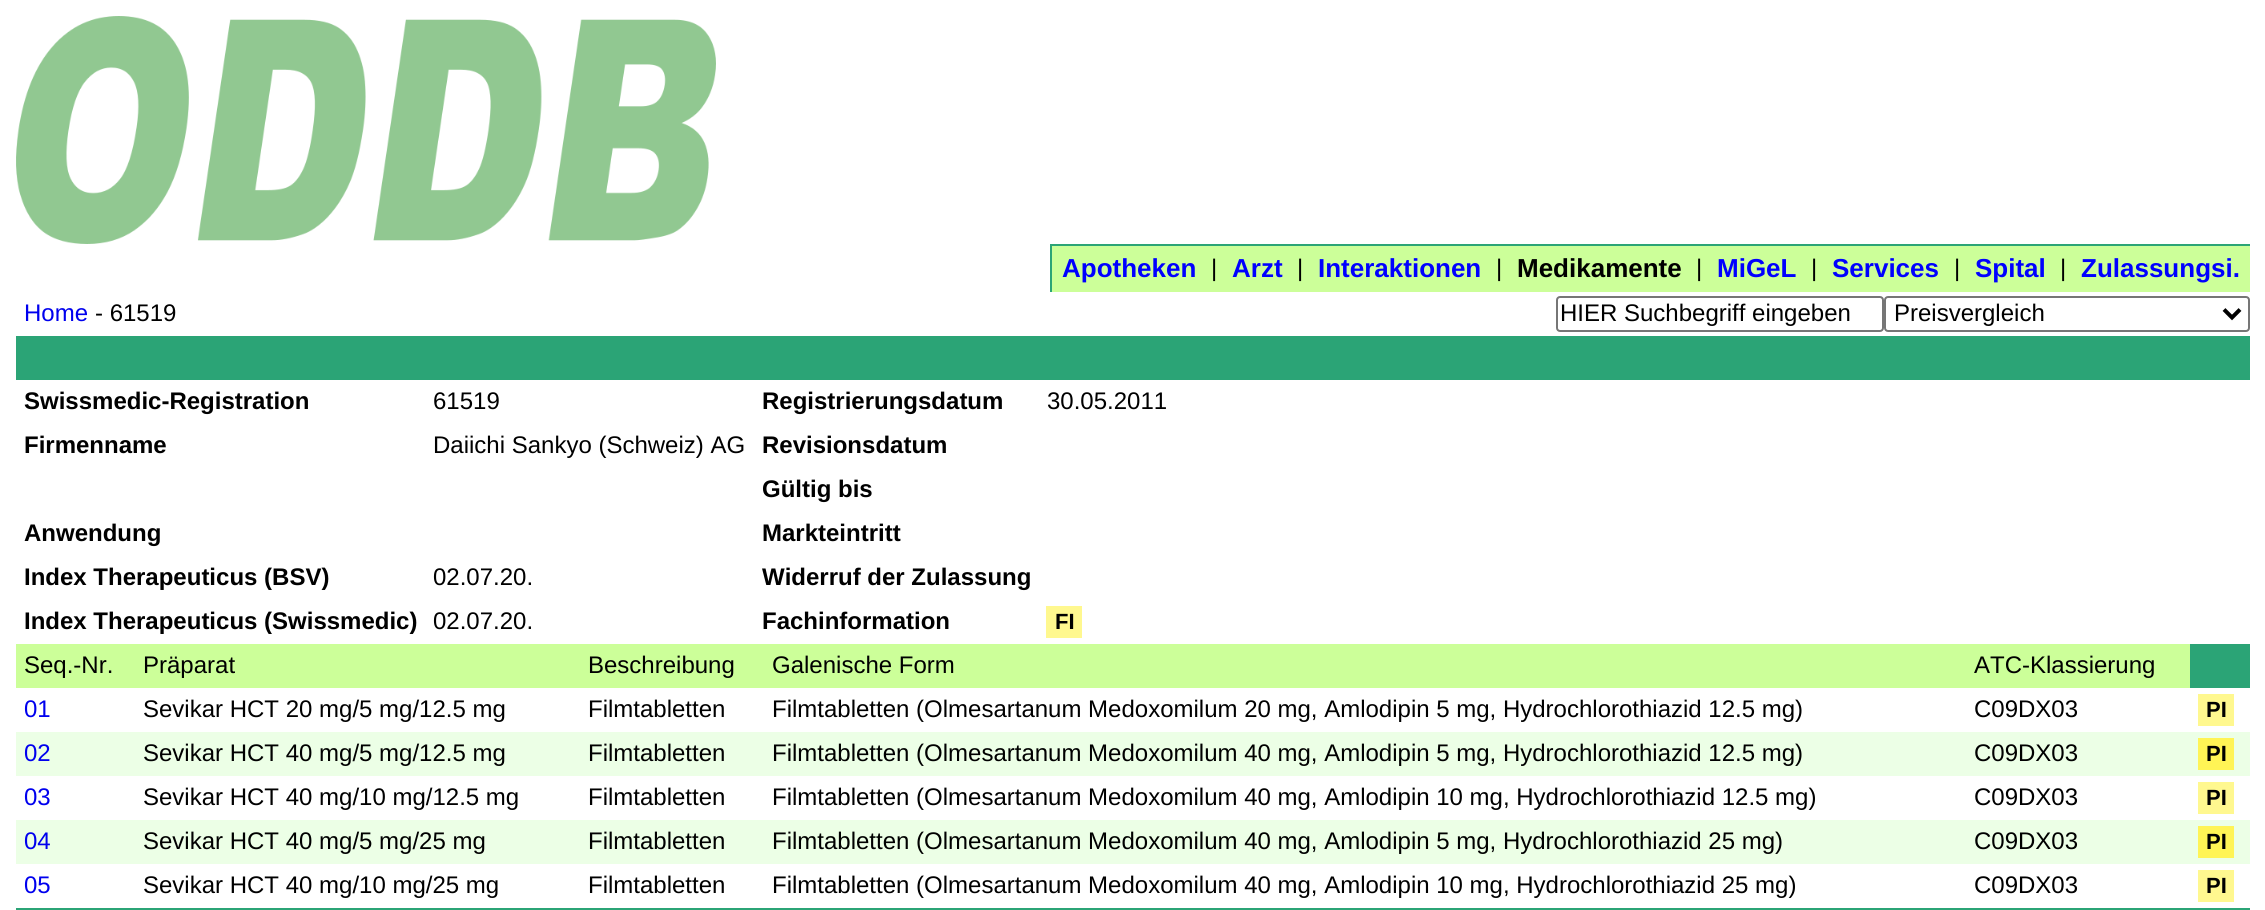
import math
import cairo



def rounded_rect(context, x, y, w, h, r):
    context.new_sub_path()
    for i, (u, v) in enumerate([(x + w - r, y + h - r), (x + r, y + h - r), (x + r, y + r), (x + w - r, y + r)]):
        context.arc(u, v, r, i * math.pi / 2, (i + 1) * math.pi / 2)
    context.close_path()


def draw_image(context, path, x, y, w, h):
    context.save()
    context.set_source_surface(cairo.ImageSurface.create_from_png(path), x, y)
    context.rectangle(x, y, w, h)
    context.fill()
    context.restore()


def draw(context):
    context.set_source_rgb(1, 1, 1)
    context.paint()
    draw_image(context, "images/1.png", 16, 16, 700, 228)
    context.set_source_rgb(204 / 255, 1, 153 / 255)
    context.rectangle(1052, 246, 1198, 46)
    context.fill()
    context.set_source_rgb(43 / 255, 164 / 255, 118 / 255)
    context.rectangle(1050, 244, 1200, 2)
    context.fill()
    context.rectangle(1050, 244, 2, 48)
    context.fill()
    rounded_rect(context, 1557, 297, 326, 34, 3)
    context.set_source_rgb(118 / 255, 118 / 255, 118 / 255)
    context.stroke()
    rounded_rect(context, 1885, 297, 364, 34, 3)
    context.stroke()
    context.new_path()
    context.move_to(2224, 309.5)
    context.line_to(2232, 317.5)
    context.line_to(2240, 309.5)
    context.set_source_rgb(0, 0, 0)
    context.set_line_width(4)
    context.stroke()
    context.set_source_rgb(43 / 255, 164 / 255, 118 / 255)
    context.rectangle(16, 336, 2234, 44)
    context.fill()
    context.set_source_rgb(1, 248 / 255, 143 / 255)
    context.rectangle(1046, 606, 36, 32)
    context.fill()
    context.set_source_rgb(204 / 255, 1, 153 / 255)
    context.rectangle(16, 644, 2174, 44)
    context.fill()
    context.set_source_rgb(43 / 255, 164 / 255, 118 / 255)
    context.rectangle(2190, 644, 60, 44)
    context.fill()
    context.set_source_rgb(1, 248 / 255, 143 / 255)
    context.rectangle(2198, 694, 36, 32)
    context.fill()
    context.set_source_rgb(236 / 255, 1, 230 / 255)
    context.rectangle(16, 732, 2234, 44)
    context.fill()
    context.set_source_rgb(1, 244 / 255, 85 / 255)
    context.rectangle(2198, 738, 36, 32)
    context.fill()
    context.set_source_rgb(1, 248 / 255, 143 / 255)
    context.rectangle(2198, 782, 36, 32)
    context.fill()
    context.set_source_rgb(236 / 255, 1, 230 / 255)
    context.rectangle(16, 820, 2234, 44)
    context.fill()
    context.set_source_rgb(1, 244 / 255, 85 / 255)
    context.rectangle(2198, 826, 36, 32)
    context.fill()
    context.set_source_rgb(1, 248 / 255, 143 / 255)
    context.rectangle(2198, 870, 36, 32)
    context.fill()
    context.set_source_rgb(43 / 255, 164 / 255, 118 / 255)
    context.rectangle(16, 908, 2234, 2)
    context.fill()
    context.select_font_face("Liberation Sans", cairo.FontSlant.NORMAL, cairo.FontWeight.BOLD)
    context.set_font_size(26)
    context.set_source_rgb(0, 0, 1)
    context.move_to(1062, 277)
    context.show_text("Apotheken")
    context.select_font_face("Liberation Sans")
    context.set_font_size(24)
    context.set_source_rgb(0, 0, 0)
    context.move_to(1211, 276)
    context.show_text("|")
    context.select_font_face("Liberation Sans", cairo.FontSlant.NORMAL, cairo.FontWeight.BOLD)
    context.set_font_size(26)
    context.set_source_rgb(0, 0, 1)
    context.move_to(1232, 277)
    context.show_text("Arzt")
    context.select_font_face("Liberation Sans")
    context.set_font_size(24)
    context.set_source_rgb(0, 0, 0)
    context.move_to(1297, 276)
    context.show_text("|")
    context.select_font_face("Liberation Sans", cairo.FontSlant.NORMAL, cairo.FontWeight.BOLD)
    context.set_font_size(26)
    context.set_source_rgb(0, 0, 1)
    context.move_to(1318, 277)
    context.show_text("Interaktionen")
    context.select_font_face("Liberation Sans")
    context.set_font_size(24)
    context.set_source_rgb(0, 0, 0)
    context.move_to(1496, 276)
    context.show_text("|")
    context.select_font_face("Liberation Sans", cairo.FontSlant.NORMAL, cairo.FontWeight.BOLD)
    context.set_font_size(26)
    context.move_to(1517, 277)
    context.show_text("Medikamente")
    context.select_font_face("Liberation Sans")
    context.set_font_size(24)
    context.move_to(1696, 276)
    context.show_text("|")
    context.select_font_face("Liberation Sans", cairo.FontSlant.NORMAL, cairo.FontWeight.BOLD)
    context.set_font_size(26)
    context.set_source_rgb(0, 0, 1)
    context.move_to(1717, 277)
    context.show_text("MiGeL")
    context.select_font_face("Liberation Sans")
    context.set_font_size(24)
    context.set_source_rgb(0, 0, 0)
    context.move_to(1811, 276)
    context.show_text("|")
    context.select_font_face("Liberation Sans", cairo.FontSlant.NORMAL, cairo.FontWeight.BOLD)
    context.set_font_size(26)
    context.set_source_rgb(0, 0, 1)
    context.move_to(1832, 277)
    context.show_text("Services")
    context.select_font_face("Liberation Sans")
    context.set_font_size(24)
    context.set_source_rgb(0, 0, 0)
    context.move_to(1954, 276)
    context.show_text("|")
    context.select_font_face("Liberation Sans", cairo.FontSlant.NORMAL, cairo.FontWeight.BOLD)
    context.set_font_size(26)
    context.set_source_rgb(0, 0, 1)
    context.move_to(1975, 277)
    context.show_text("Spital")
    context.select_font_face("Liberation Sans")
    context.set_font_size(24)
    context.set_source_rgb(0, 0, 0)
    context.move_to(2060, 276)
    context.show_text("|")
    context.select_font_face("Liberation Sans", cairo.FontSlant.NORMAL, cairo.FontWeight.BOLD)
    context.set_font_size(26)
    context.set_source_rgb(0, 0, 1)
    context.move_to(2081, 277)
    context.show_text("Zulassungsi.")
    context.select_font_face("Liberation Sans")
    context.set_font_size(24)
    context.set_source_rgb(0, 0, 238 / 255)
    context.move_to(24, 321)
    context.show_text("Home")
    context.set_source_rgb(0, 0, 0)
    context.move_to(95, 321)
    context.show_text("- 61519")
    context.move_to(1560, 321)
    context.show_text("HIER Suchbegriff eingeben")
    context.move_to(1894, 321)
    context.show_text("Preisvergleich")
    context.select_font_face("Liberation Sans", cairo.FontSlant.NORMAL, cairo.FontWeight.BOLD)
    context.move_to(24, 409)
    context.show_text("Swissmedic-Registration")
    context.select_font_face("Liberation Sans")
    context.move_to(433, 409)
    context.show_text("61519")
    context.select_font_face("Liberation Sans", cairo.FontSlant.NORMAL, cairo.FontWeight.BOLD)
    context.move_to(762, 409)
    context.show_text("Registrierungsdatum")
    context.select_font_face("Liberation Sans")
    context.move_to(1047, 409)
    context.show_text("30.05.2011")
    context.select_font_face("Liberation Sans", cairo.FontSlant.NORMAL, cairo.FontWeight.BOLD)
    context.move_to(24, 453)
    context.show_text("Firmenname")
    context.select_font_face("Liberation Sans")
    context.move_to(433, 453)
    context.show_text("Daiichi Sankyo (Schweiz) AG")
    context.select_font_face("Liberation Sans", cairo.FontSlant.NORMAL, cairo.FontWeight.BOLD)
    context.move_to(762, 453)
    context.show_text("Revisionsdatum")
    context.move_to(762, 497)
    context.show_text("Gültig bis")
    context.move_to(24, 541)
    context.show_text("Anwendung")
    context.move_to(762, 541)
    context.show_text("Markteintritt")
    context.move_to(24, 585)
    context.show_text("Index Therapeuticus (BSV)")
    context.select_font_face("Liberation Sans")
    context.move_to(433, 585)
    context.show_text("02.07.20.")
    context.select_font_face("Liberation Sans", cairo.FontSlant.NORMAL, cairo.FontWeight.BOLD)
    context.move_to(762, 585)
    context.show_text("Widerruf der Zulassung")
    context.move_to(24, 629)
    context.show_text("Index Therapeuticus (Swissmedic)")
    context.select_font_face("Liberation Sans")
    context.move_to(433, 629)
    context.show_text("02.07.20.")
    context.select_font_face("Liberation Sans", cairo.FontSlant.NORMAL, cairo.FontWeight.BOLD)
    context.move_to(762, 629)
    context.show_text("Fachinformation")
    context.set_font_size(22)
    context.move_to(1055, 629)
    context.show_text("FI")
    context.select_font_face("Liberation Sans")
    context.set_font_size(24)
    context.move_to(24, 673)
    context.show_text("Seq.-Nr.")
    context.move_to(143, 673)
    context.show_text("Präparat")
    context.move_to(588, 673)
    context.show_text("Beschreibung")
    context.move_to(772, 673)
    context.show_text("Galenische Form")
    context.move_to(1974, 673)
    context.show_text("ATC-Klassierung")
    context.set_source_rgb(0, 0, 238 / 255)
    context.move_to(24, 717)
    context.show_text("01")
    context.set_source_rgb(0, 0, 0)
    context.move_to(143, 717)
    context.show_text("Sevikar HCT 20 mg/5 mg/12.5 mg")
    context.move_to(588, 717)
    context.show_text("Filmtabletten")
    context.move_to(772, 717)
    context.show_text("Filmtabletten (Olmesartanum Medoxomilum 20 mg, Amlodipin 5 mg, Hydrochlorothiazid 12.5 mg)")
    context.move_to(1974, 717)
    context.show_text("C09DX03")
    context.select_font_face("Liberation Sans", cairo.FontSlant.NORMAL, cairo.FontWeight.BOLD)
    context.set_font_size(22)
    context.move_to(2206, 717)
    context.show_text("PI")
    context.select_font_face("Liberation Sans")
    context.set_font_size(24)
    context.set_source_rgb(0, 0, 238 / 255)
    context.move_to(24, 761)
    context.show_text("02")
    context.set_source_rgb(0, 0, 0)
    context.move_to(143, 761)
    context.show_text("Sevikar HCT 40 mg/5 mg/12.5 mg")
    context.move_to(588, 761)
    context.show_text("Filmtabletten")
    context.move_to(772, 761)
    context.show_text("Filmtabletten (Olmesartanum Medoxomilum 40 mg, Amlodipin 5 mg, Hydrochlorothiazid 12.5 mg)")
    context.move_to(1974, 761)
    context.show_text("C09DX03")
    context.select_font_face("Liberation Sans", cairo.FontSlant.NORMAL, cairo.FontWeight.BOLD)
    context.set_font_size(22)
    context.move_to(2206, 761)
    context.show_text("PI")
    context.select_font_face("Liberation Sans")
    context.set_font_size(24)
    context.set_source_rgb(0, 0, 238 / 255)
    context.move_to(24, 805)
    context.show_text("03")
    context.set_source_rgb(0, 0, 0)
    context.move_to(143, 805)
    context.show_text("Sevikar HCT 40 mg/10 mg/12.5 mg")
    context.move_to(588, 805)
    context.show_text("Filmtabletten")
    context.move_to(772, 805)
    context.show_text("Filmtabletten (Olmesartanum Medoxomilum 40 mg, Amlodipin 10 mg, Hydrochlorothiazid 12.5 mg)")
    context.move_to(1974, 805)
    context.show_text("C09DX03")
    context.select_font_face("Liberation Sans", cairo.FontSlant.NORMAL, cairo.FontWeight.BOLD)
    context.set_font_size(22)
    context.move_to(2206, 805)
    context.show_text("PI")
    context.select_font_face("Liberation Sans")
    context.set_font_size(24)
    context.set_source_rgb(0, 0, 238 / 255)
    context.move_to(24, 849)
    context.show_text("04")
    context.set_source_rgb(0, 0, 0)
    context.move_to(143, 849)
    context.show_text("Sevikar HCT 40 mg/5 mg/25 mg")
    context.move_to(588, 849)
    context.show_text("Filmtabletten")
    context.move_to(772, 849)
    context.show_text("Filmtabletten (Olmesartanum Medoxomilum 40 mg, Amlodipin 5 mg, Hydrochlorothiazid 25 mg)")
    context.move_to(1974, 849)
    context.show_text("C09DX03")
    context.select_font_face("Liberation Sans", cairo.FontSlant.NORMAL, cairo.FontWeight.BOLD)
    context.set_font_size(22)
    context.move_to(2206, 849)
    context.show_text("PI")
    context.select_font_face("Liberation Sans")
    context.set_font_size(24)
    context.set_source_rgb(0, 0, 238 / 255)
    context.move_to(24, 893)
    context.show_text("05")
    context.set_source_rgb(0, 0, 0)
    context.move_to(143, 893)
    context.show_text("Sevikar HCT 40 mg/10 mg/25 mg")
    context.move_to(588, 893)
    context.show_text("Filmtabletten")
    context.move_to(772, 893)
    context.show_text("Filmtabletten (Olmesartanum Medoxomilum 40 mg, Amlodipin 10 mg, Hydrochlorothiazid 25 mg)")
    context.move_to(1974, 893)
    context.show_text("C09DX03")
    context.select_font_face("Liberation Sans", cairo.FontSlant.NORMAL, cairo.FontWeight.BOLD)
    context.set_font_size(22)
    context.move_to(2206, 893)
    context.show_text("PI")


surface = cairo.ImageSurface(cairo.Format.RGB24, 2265, 910)
context = cairo.Context(surface)
options = cairo.FontOptions()
options.set_hint_metrics(cairo.HintMetrics.OFF)
options.set_hint_style(cairo.HintStyle.NONE)
context.set_font_options(options)
context.set_miter_limit(4)
draw(context)
surface.write_to_png("out.png")
